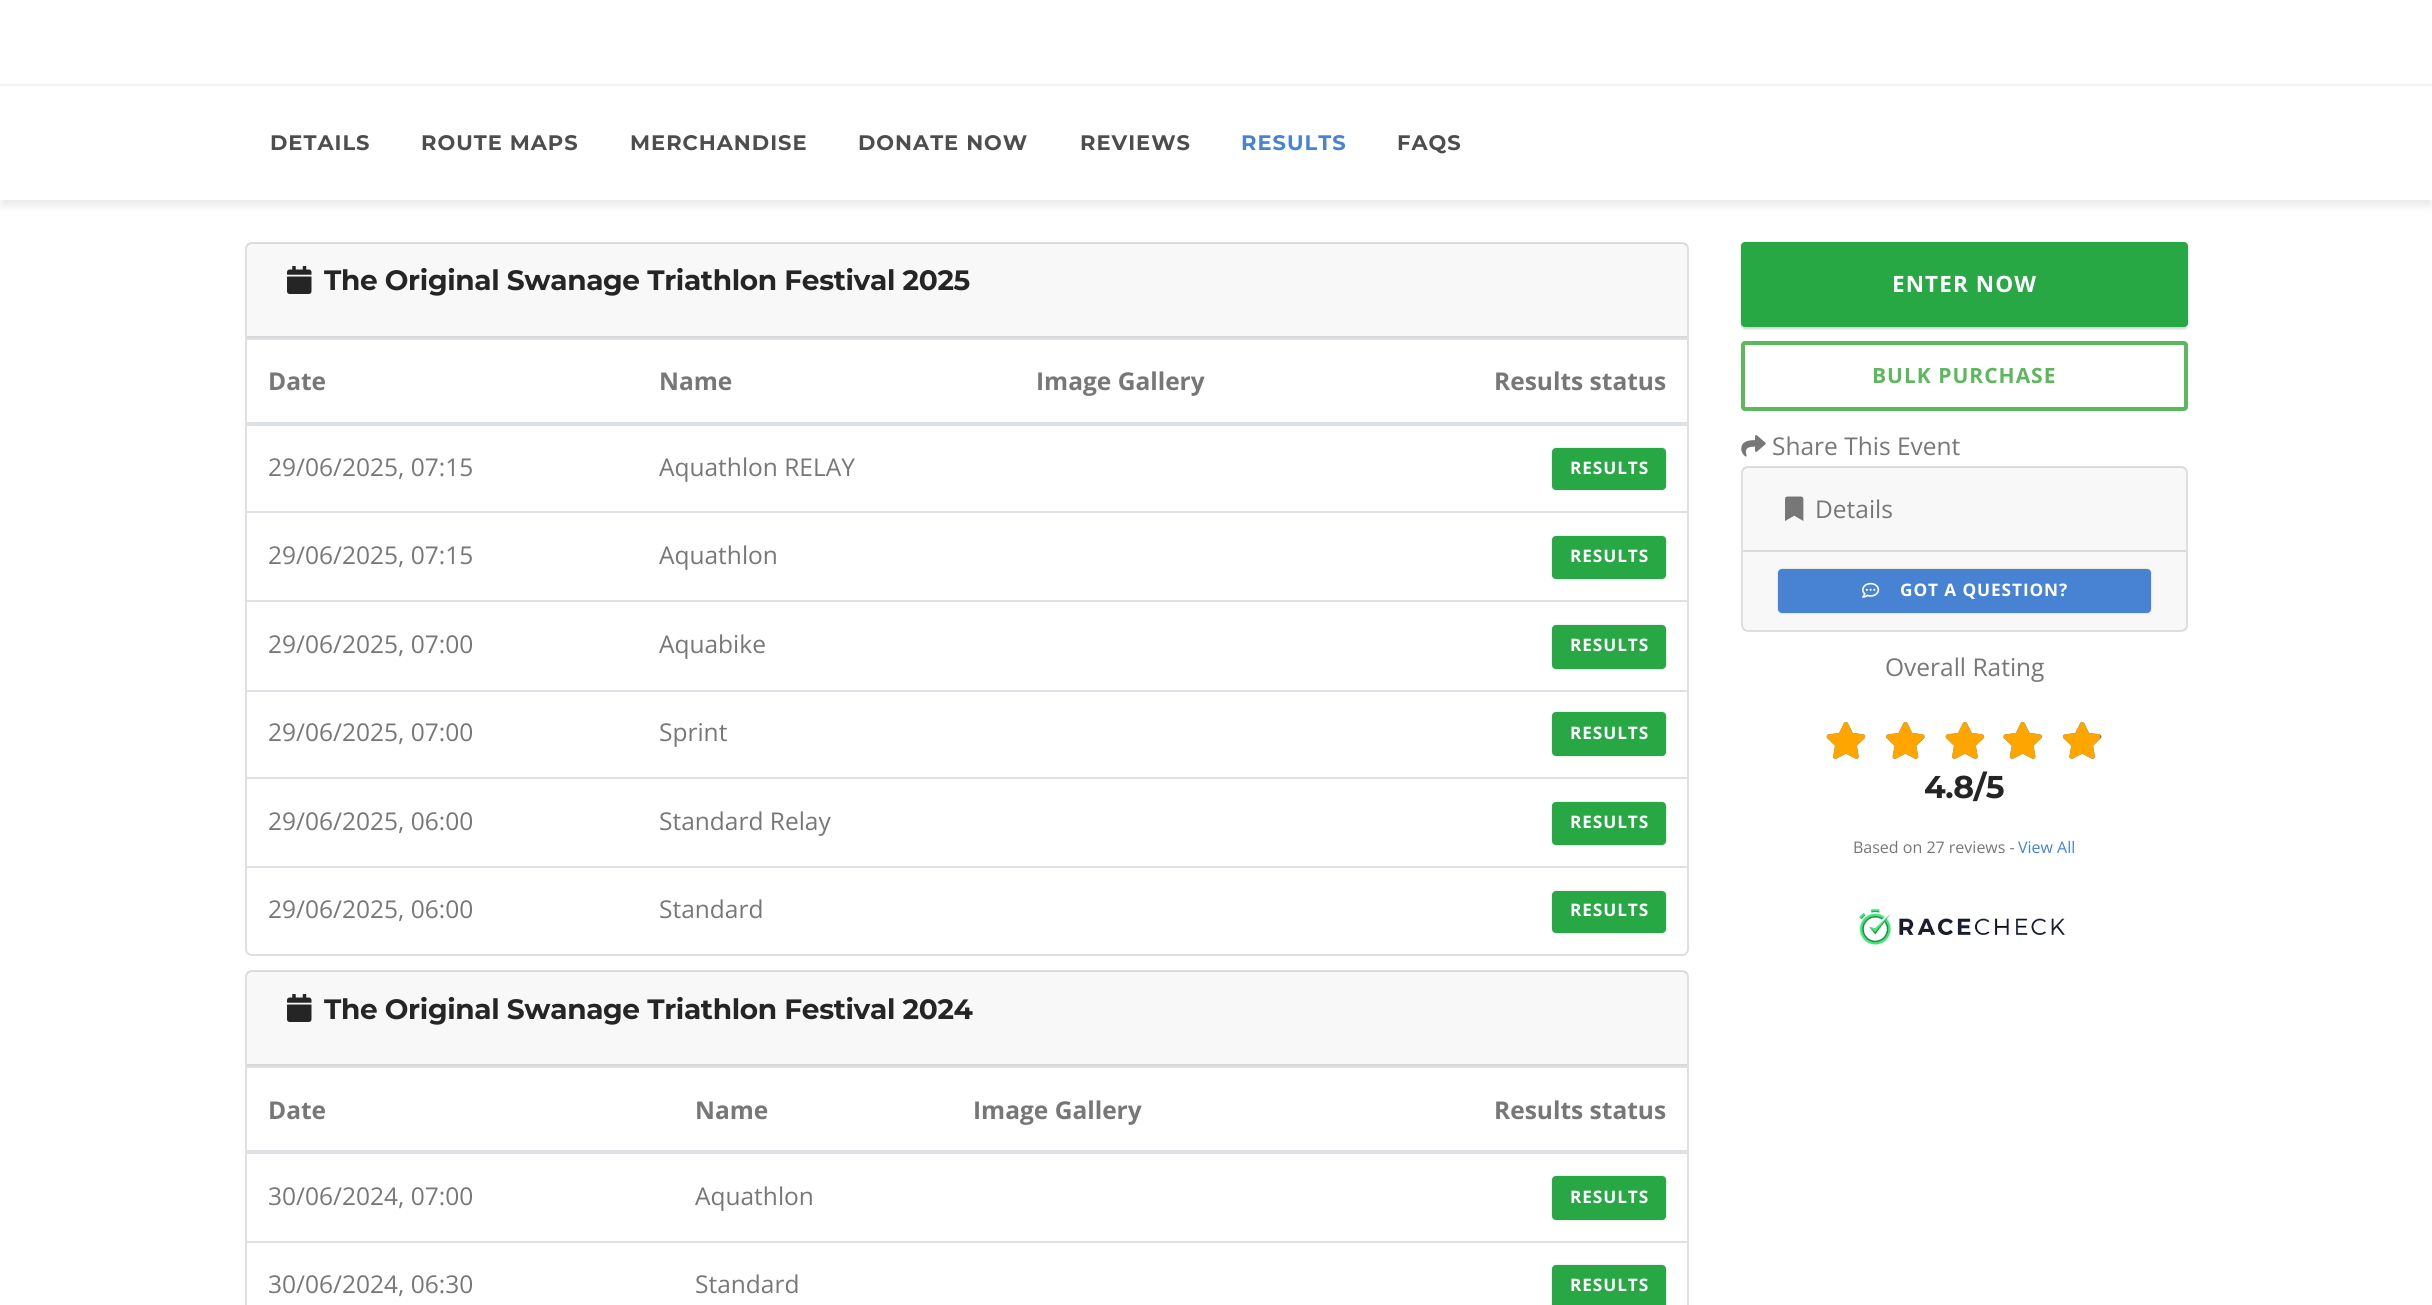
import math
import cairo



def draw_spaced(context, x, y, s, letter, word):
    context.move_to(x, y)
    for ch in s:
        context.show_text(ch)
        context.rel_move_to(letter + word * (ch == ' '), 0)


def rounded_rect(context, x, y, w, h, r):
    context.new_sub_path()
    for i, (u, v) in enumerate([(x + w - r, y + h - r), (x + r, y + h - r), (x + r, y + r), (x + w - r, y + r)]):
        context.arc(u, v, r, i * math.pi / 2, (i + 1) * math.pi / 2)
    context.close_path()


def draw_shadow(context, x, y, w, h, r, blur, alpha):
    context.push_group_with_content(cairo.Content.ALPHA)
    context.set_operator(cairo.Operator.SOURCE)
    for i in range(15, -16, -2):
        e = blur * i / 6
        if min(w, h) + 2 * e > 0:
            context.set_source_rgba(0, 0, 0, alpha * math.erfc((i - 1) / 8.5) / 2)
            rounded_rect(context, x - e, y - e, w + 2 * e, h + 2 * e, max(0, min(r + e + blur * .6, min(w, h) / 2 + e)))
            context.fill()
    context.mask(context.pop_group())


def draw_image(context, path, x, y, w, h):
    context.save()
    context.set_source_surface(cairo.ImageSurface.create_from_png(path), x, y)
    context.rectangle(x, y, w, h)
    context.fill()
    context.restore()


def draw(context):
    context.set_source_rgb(1, 1, 1)
    context.paint()
    context.set_source_rgb(0, 0, 0)
    draw_shadow(context, 2, 93, 2429, 112, 0, 5, 0.1)
    context.set_source_rgb(1, 1, 1)
    context.rectangle(0, 87, 2432, 113)
    context.fill()
    context.set_source_rgb(243 / 255, 243 / 255, 243 / 255)
    context.rectangle(0, 84, 2432, 2)
    context.fill()
    rounded_rect(context, 246, 243, 1442, 712, 6)
    context.set_source_rgb(223 / 255, 223 / 255, 223 / 255)
    context.stroke()
    context.set_source_rgba(0, 0, 0, 0.03)
    context.rectangle(247, 243, 1440, 93)
    context.fill()
    context.set_source_rgb(216 / 255, 216 / 255, 216 / 255)
    context.rectangle(247, 336, 1440, 2)
    context.fill()
    draw_image(context, "images/1.png", 287, 266, 25, 28)
    context.set_source_rgb(222 / 255, 226 / 255, 230 / 255)
    context.rectangle(247, 338, 1442, 2)
    context.fill()
    context.rectangle(245, 422, 1444, 4)
    context.fill()
    context.set_source_rgb(0, 0, 0)
    draw_shadow(context, 1552, 448, 114, 42, 4, 1, 0.18)
    context.set_source_rgb(40 / 255, 167 / 255, 69 / 255)
    rounded_rect(context, 1552, 448, 114, 42, 4)
    context.fill()
    context.set_source_rgb(222 / 255, 226 / 255, 230 / 255)
    context.rectangle(247, 511, 1442, 2)
    context.fill()
    context.set_source_rgb(0, 0, 0)
    draw_shadow(context, 1552, 536, 114, 43, 4, 1, 0.18)
    context.set_source_rgb(40 / 255, 167 / 255, 69 / 255)
    rounded_rect(context, 1552, 536, 114, 43, 4)
    context.fill()
    context.set_source_rgb(222 / 255, 226 / 255, 230 / 255)
    context.rectangle(247, 600, 1442, 2)
    context.fill()
    context.set_source_rgb(0, 0, 0)
    draw_shadow(context, 1552, 625, 114, 44, 4, 1, 0.18)
    context.set_source_rgb(40 / 255, 167 / 255, 69 / 255)
    rounded_rect(context, 1552, 625, 114, 44, 4)
    context.fill()
    context.set_source_rgb(222 / 255, 226 / 255, 230 / 255)
    context.rectangle(247, 690, 1442, 2)
    context.fill()
    context.set_source_rgb(0, 0, 0)
    draw_shadow(context, 1552, 712, 114, 44, 4, 1, 0.18)
    context.set_source_rgb(40 / 255, 167 / 255, 69 / 255)
    rounded_rect(context, 1552, 712, 114, 44, 4)
    context.fill()
    context.set_source_rgb(222 / 255, 226 / 255, 230 / 255)
    context.rectangle(247, 777, 1442, 2)
    context.fill()
    context.set_source_rgb(0, 0, 0)
    draw_shadow(context, 1552, 802, 114, 43, 4, 1, 0.18)
    context.set_source_rgb(40 / 255, 167 / 255, 69 / 255)
    rounded_rect(context, 1552, 802, 114, 43, 4)
    context.fill()
    context.set_source_rgb(222 / 255, 226 / 255, 230 / 255)
    context.rectangle(247, 866, 1442, 2)
    context.fill()
    context.set_source_rgb(0, 0, 0)
    draw_shadow(context, 1552, 891, 114, 42, 4, 1, 0.18)
    context.set_source_rgb(40 / 255, 167 / 255, 69 / 255)
    rounded_rect(context, 1552, 891, 114, 42, 4)
    context.fill()
    rounded_rect(context, 246, 971, 1442, 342, 6)
    context.set_source_rgb(223 / 255, 223 / 255, 223 / 255)
    context.stroke()
    context.set_source_rgba(0, 0, 0, 0.03)
    context.rectangle(247, 971, 1440, 93)
    context.fill()
    context.set_source_rgb(216 / 255, 216 / 255, 216 / 255)
    context.rectangle(247, 1064, 1440, 2)
    context.fill()
    draw_image(context, "images/1.png", 287, 994, 25, 28)
    context.set_source_rgb(222 / 255, 226 / 255, 230 / 255)
    context.rectangle(247, 1066, 1442, 2)
    context.fill()
    context.rectangle(245, 1150, 1444, 4)
    context.fill()
    context.set_source_rgb(0, 0, 0)
    draw_shadow(context, 1552, 1176, 114, 44, 4, 1, 0.18)
    context.set_source_rgb(40 / 255, 167 / 255, 69 / 255)
    rounded_rect(context, 1552, 1176, 114, 44, 4)
    context.fill()
    context.set_source_rgb(222 / 255, 226 / 255, 230 / 255)
    context.rectangle(247, 1241, 1442, 2)
    context.fill()
    context.set_source_rgb(0, 0, 0)
    draw_shadow(context, 1552, 1265, 114, 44, 4, 1, 0.18)
    context.set_source_rgb(40 / 255, 167 / 255, 69 / 255)
    rounded_rect(context, 1552, 1265, 114, 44, 4)
    context.fill()
    context.set_source_rgb(0, 0, 0)
    draw_shadow(context, 1741, 243, 447, 86, 4, 1, 0.18)
    context.set_source_rgb(40 / 255, 167 / 255, 69 / 255)
    rounded_rect(context, 1741, 242, 447, 85, 4)
    context.fill()
    rounded_rect(context, 1743, 343, 443, 66, 2)
    context.set_source_rgb(92 / 255, 184 / 255, 92 / 255)
    context.set_line_width(4)
    context.stroke()
    draw_image(context, "images/2.png", 1741, 435, 25, 22)
    rounded_rect(context, 1742, 467, 445, 164, 6)
    context.set_source_rgb(223 / 255, 223 / 255, 223 / 255)
    context.set_line_width(2)
    context.stroke()
    context.set_source_rgba(0, 0, 0, 0.03)
    context.rectangle(1743, 467, 443, 84)
    context.fill()
    context.set_source_rgba(0, 0, 0, 0.12)
    context.rectangle(1743, 550, 443, 2)
    context.fill()
    draw_image(context, "images/3.png", 1785, 496, 19, 25)
    context.set_source_rgba(0, 0, 0, 0.03)
    context.rectangle(1743, 551, 443, 79)
    context.fill()
    context.set_source_rgb(0, 0, 0)
    draw_shadow(context, 1778, 569, 373, 44, 4, 1, 0.18)
    context.set_source_rgb(71 / 255, 130 / 255, 211 / 255)
    rounded_rect(context, 1778, 569, 373, 44, 4)
    context.fill()
    draw_image(context, "images/4.png", 1862, 582, 18, 16)
    draw_image(context, "images/5.png", 1826, 722, 40, 37)
    draw_image(context, "images/6.png", 1826, 722, 40, 37)
    draw_image(context, "images/10.png", 1886, 722, 39, 37)
    draw_image(context, "images/7.png", 1886, 722, 39, 37)
    draw_image(context, "images/5.png", 1945, 722, 40, 37)
    draw_image(context, "images/6.png", 1945, 722, 40, 37)
    draw_image(context, "images/11.png", 2003, 722, 39, 37)
    draw_image(context, "images/8.png", 2003, 722, 39, 37)
    draw_image(context, "images/12.png", 2063, 722, 39, 37)
    draw_image(context, "images/9.png", 2063, 722, 37, 37)
    draw_image(context, "images/13.png", 1859, 908, 206, 37)
    context.select_font_face("Montserrat", cairo.FontSlant.NORMAL, cairo.FontWeight.BOLD)
    context.set_font_size(21)
    context.set_source_rgb(77 / 255, 77 / 255, 77 / 255)
    draw_spaced(context, 270, 150, "DETAILS", 1, 0)
    draw_spaced(context, 421, 150, "ROUTE MAPS", 1, 0)
    draw_spaced(context, 630, 150, "MERCHANDISE", 1, 0)
    draw_spaced(context, 858, 150, "DONATE NOW", 1, 0)
    draw_spaced(context, 1080, 150, "REVIEWS", 1, 0)
    context.set_source_rgb(71 / 255, 130 / 255, 211 / 255)
    draw_spaced(context, 1241, 150, "RESULTS", 1, 0)
    context.set_source_rgb(77 / 255, 77 / 255, 77 / 255)
    draw_spaced(context, 1397, 150, "FAQS", 1, 0)
    context.set_font_size(28)
    context.set_source_rgb(37 / 255, 37 / 255, 37 / 255)
    draw_spaced(context, 324, 290, "The Original Swanage Triathlon Festival 2025", -0.35, 0)
    context.select_font_face("Open Sans", cairo.FontSlant.NORMAL, cairo.FontWeight.BOLD)
    context.set_font_size(24.5)
    context.set_source_rgb(119 / 255, 119 / 255, 119 / 255)
    context.move_to(268, 390)
    context.show_text("Date")
    context.move_to(659, 390)
    context.show_text("Name")
    context.move_to(1036, 390)
    context.show_text("Image Gallery")
    context.move_to(1494, 390)
    context.show_text("Results status")
    context.select_font_face("Open Sans")
    context.move_to(268, 476)
    context.show_text("29/06/2025, 07:15")
    context.move_to(659, 476)
    context.show_text("Aquathlon RELAY")
    context.select_font_face("Open Sans", cairo.FontSlant.NORMAL, cairo.FontWeight.BOLD)
    context.set_font_size(17.25)
    context.set_source_rgb(1, 1, 1)
    draw_spaced(context, 1570, 474, "RESULTS", 0.9, 0)
    context.select_font_face("Open Sans")
    context.set_font_size(24.5)
    context.set_source_rgb(119 / 255, 119 / 255, 119 / 255)
    context.move_to(268, 564)
    context.show_text("29/06/2025, 07:15")
    context.move_to(659, 564)
    context.show_text("Aquathlon")
    context.select_font_face("Open Sans", cairo.FontSlant.NORMAL, cairo.FontWeight.BOLD)
    context.set_font_size(17.25)
    context.set_source_rgb(1, 1, 1)
    draw_spaced(context, 1570, 562, "RESULTS", 0.9, 0)
    context.select_font_face("Open Sans")
    context.set_font_size(24.5)
    context.set_source_rgb(119 / 255, 119 / 255, 119 / 255)
    context.move_to(268, 653)
    context.show_text("29/06/2025, 07:00")
    context.move_to(659, 653)
    context.show_text("Aquabike")
    context.select_font_face("Open Sans", cairo.FontSlant.NORMAL, cairo.FontWeight.BOLD)
    context.set_font_size(17.25)
    context.set_source_rgb(1, 1, 1)
    draw_spaced(context, 1570, 651, "RESULTS", 0.9, 0)
    context.select_font_face("Open Sans")
    context.set_font_size(24.5)
    context.set_source_rgb(119 / 255, 119 / 255, 119 / 255)
    context.move_to(268, 741)
    context.show_text("29/06/2025, 07:00")
    context.move_to(659, 741)
    context.show_text("Sprint")
    context.select_font_face("Open Sans", cairo.FontSlant.NORMAL, cairo.FontWeight.BOLD)
    context.set_font_size(17.25)
    context.set_source_rgb(1, 1, 1)
    draw_spaced(context, 1570, 739, "RESULTS", 0.9, 0)
    context.select_font_face("Open Sans")
    context.set_font_size(24.5)
    context.set_source_rgb(119 / 255, 119 / 255, 119 / 255)
    context.move_to(268, 830)
    context.show_text("29/06/2025, 06:00")
    context.move_to(659, 830)
    context.show_text("Standard Relay")
    context.select_font_face("Open Sans", cairo.FontSlant.NORMAL, cairo.FontWeight.BOLD)
    context.set_font_size(17.25)
    context.set_source_rgb(1, 1, 1)
    draw_spaced(context, 1570, 828, "RESULTS", 0.9, 0)
    context.select_font_face("Open Sans")
    context.set_font_size(24.5)
    context.set_source_rgb(119 / 255, 119 / 255, 119 / 255)
    context.move_to(268, 918)
    context.show_text("29/06/2025, 06:00")
    context.move_to(659, 918)
    context.show_text("Standard")
    context.select_font_face("Open Sans", cairo.FontSlant.NORMAL, cairo.FontWeight.BOLD)
    context.set_font_size(17.25)
    context.set_source_rgb(1, 1, 1)
    draw_spaced(context, 1570, 916, "RESULTS", 0.9, 0)
    context.select_font_face("Montserrat", cairo.FontSlant.NORMAL, cairo.FontWeight.BOLD)
    context.set_font_size(28)
    context.set_source_rgb(37 / 255, 37 / 255, 37 / 255)
    draw_spaced(context, 324, 1019, "The Original Swanage Triathlon Festival 2024", -0.35, 0)
    context.select_font_face("Open Sans", cairo.FontSlant.NORMAL, cairo.FontWeight.BOLD)
    context.set_font_size(24.5)
    context.set_source_rgb(119 / 255, 119 / 255, 119 / 255)
    context.move_to(268, 1119)
    context.show_text("Date")
    context.move_to(695, 1119)
    context.show_text("Name")
    context.move_to(973, 1119)
    context.show_text("Image Gallery")
    context.move_to(1494, 1119)
    context.show_text("Results status")
    context.select_font_face("Open Sans")
    context.move_to(268, 1205)
    context.show_text("30/06/2024, 07:00")
    context.move_to(695, 1205)
    context.show_text("Aquathlon")
    context.select_font_face("Open Sans", cairo.FontSlant.NORMAL, cairo.FontWeight.BOLD)
    context.set_font_size(17.25)
    context.set_source_rgb(1, 1, 1)
    draw_spaced(context, 1570, 1203, "RESULTS", 0.9, 0)
    context.select_font_face("Open Sans")
    context.set_font_size(24.5)
    context.set_source_rgb(119 / 255, 119 / 255, 119 / 255)
    context.move_to(268, 1293)
    context.show_text("30/06/2024, 06:30")
    context.move_to(695, 1293)
    context.show_text("Standard")
    context.select_font_face("Open Sans", cairo.FontSlant.NORMAL, cairo.FontWeight.BOLD)
    context.set_font_size(17.25)
    context.set_source_rgb(1, 1, 1)
    draw_spaced(context, 1570, 1291, "RESULTS", 0.9, 0)
    context.set_font_size(22.5)
    draw_spaced(context, 1892, 292, "ENTER NOW", 1.1, 0)
    context.set_font_size(21)
    context.set_source_rgb(92 / 255, 184 / 255, 92 / 255)
    draw_spaced(context, 1872, 383, "BULK PURCHASE", 1, 0)
    context.select_font_face("Open Sans")
    context.set_font_size(24.5)
    context.set_source_rgb(119 / 255, 119 / 255, 119 / 255)
    context.move_to(1772, 455)
    context.show_text("Share This Event")
    context.move_to(1815, 518)
    context.show_text("Details")
    context.select_font_face("Open Sans", cairo.FontSlant.NORMAL, cairo.FontWeight.BOLD)
    context.set_font_size(17.25)
    context.set_source_rgb(1, 1, 1)
    draw_spaced(context, 1900, 596, "GOT A QUESTION?", 0.9, 0)
    context.select_font_face("Open Sans")
    context.set_font_size(24.5)
    context.set_source_rgb(119 / 255, 119 / 255, 119 / 255)
    context.move_to(1885, 676)
    context.show_text("Overall Rating")
    context.select_font_face("Montserrat", cairo.FontSlant.NORMAL, cairo.FontWeight.BOLD)
    context.set_font_size(31.5)
    context.set_source_rgb(37 / 255, 37 / 255, 37 / 255)
    draw_spaced(context, 1924, 798, "4.8/5", -0.35, 0)
    context.select_font_face("Open Sans")
    context.set_font_size(16)
    context.set_source_rgb(119 / 255, 119 / 255, 119 / 255)
    context.move_to(1853, 853)
    context.show_text("Based on 27 reviews -")
    context.set_source_rgb(71 / 255, 130 / 255, 211 / 255)
    context.move_to(2018, 853)
    context.show_text("View All")


surface = cairo.ImageSurface(cairo.Format.RGB24, 2432, 1305)
context = cairo.Context(surface)
options = cairo.FontOptions()
options.set_hint_metrics(cairo.HintMetrics.OFF)
options.set_hint_style(cairo.HintStyle.NONE)
context.set_font_options(options)
context.set_miter_limit(4)
draw(context)
surface.write_to_png("out.png")
